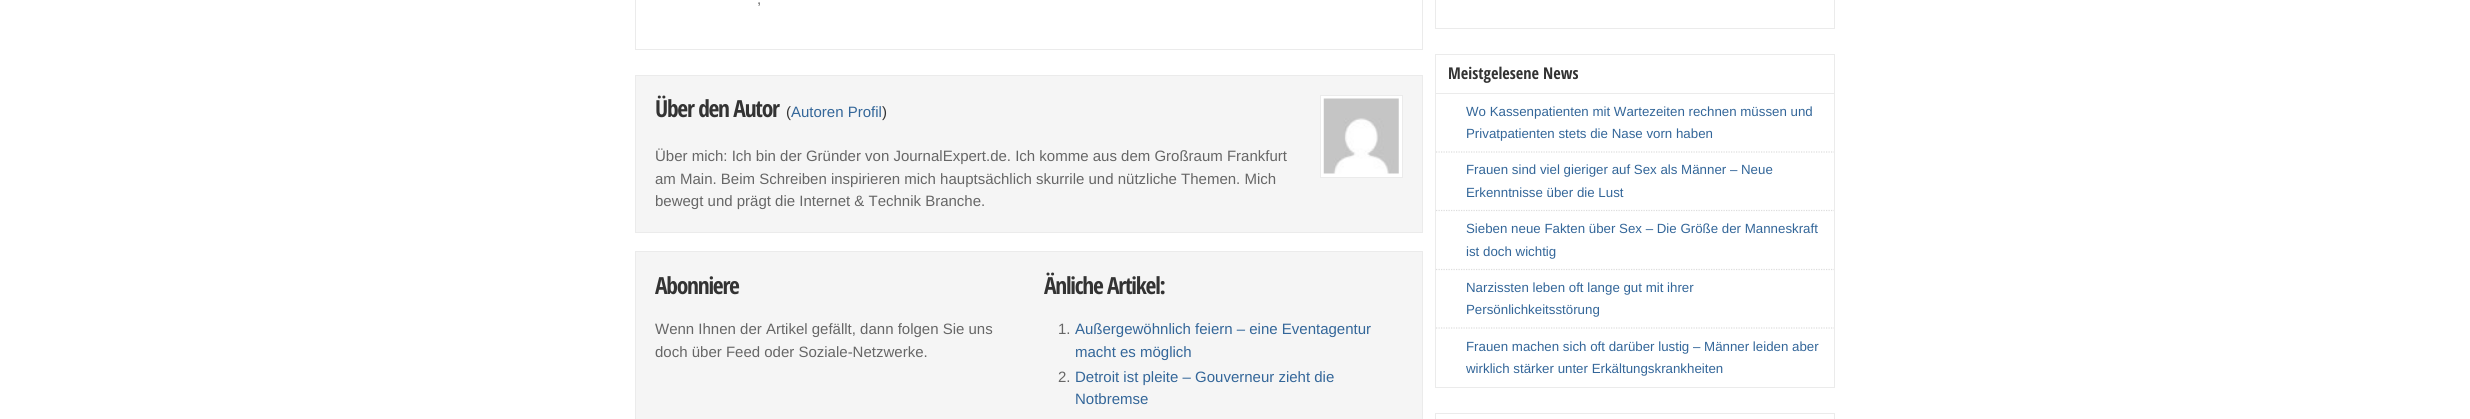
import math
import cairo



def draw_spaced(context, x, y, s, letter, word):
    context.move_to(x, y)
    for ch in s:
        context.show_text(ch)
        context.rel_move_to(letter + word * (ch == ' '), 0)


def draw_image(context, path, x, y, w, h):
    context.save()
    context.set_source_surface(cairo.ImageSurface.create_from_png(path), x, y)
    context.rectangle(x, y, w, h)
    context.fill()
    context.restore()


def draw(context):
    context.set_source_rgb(1, 1, 1)
    context.paint()
    context.rectangle(635.5, -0.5, 787, 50)
    context.set_source_rgb(235 / 255, 235 / 255, 235 / 255)
    context.set_line_width(1)
    context.stroke()
    context.set_source_rgb(245 / 255, 245 / 255, 245 / 255)
    context.rectangle(635.5, 75.5, 787, 157)
    context.fill_preserve()
    context.set_source_rgb(235 / 255, 235 / 255, 235 / 255)
    context.stroke()
    context.set_source_rgb(1, 1, 1)
    context.rectangle(1320.5, 95.5, 82, 82)
    context.fill_preserve()
    context.set_source_rgb(235 / 255, 235 / 255, 235 / 255)
    context.stroke()
    draw_image(context, "images/1.png", 1323, 98, 76, 76)
    context.set_source_rgb(245 / 255, 245 / 255, 245 / 255)
    context.rectangle(635.5, 251.5, 787, 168)
    context.fill_preserve()
    context.set_source_rgb(235 / 255, 235 / 255, 235 / 255)
    context.stroke()
    context.rectangle(1435.5, -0.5, 399, 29)
    context.stroke()
    context.rectangle(1435.5, 54.5, 399, 333)
    context.stroke()
    context.rectangle(1436, 93, 398, 1)
    context.fill()
    context.new_path()
    context.move_to(1436, 152)
    context.line_to(1834, 152)
    context.set_source_rgb(221 / 255, 221 / 255, 221 / 255)
    context.set_line_width(1.2)
    context.set_dash([1.25, 1.25])
    context.stroke()
    context.new_path()
    context.move_to(1436, 210.5)
    context.line_to(1834, 210.5)
    context.stroke()
    context.new_path()
    context.move_to(1436, 269.5)
    context.line_to(1834, 269.5)
    context.stroke()
    context.new_path()
    context.move_to(1436, 328)
    context.line_to(1834, 328)
    context.stroke()
    context.rectangle(1435.5, 413.5, 399, 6)
    context.set_source_rgb(235 / 255, 235 / 255, 235 / 255)
    context.set_line_width(1)
    context.set_dash([])
    context.stroke()
    context.select_font_face("Liberation Sans")
    context.set_font_size(15)
    context.set_source_rgb(102 / 255, 102 / 255, 102 / 255)
    context.move_to(757, 4)
    context.show_text(",")
    context.select_font_face("Open Sans Condensed", cairo.FontSlant.NORMAL, cairo.FontWeight.BOLD)
    context.set_font_size(23.5)
    context.set_source_rgb(51 / 255, 51 / 255, 51 / 255)
    draw_spaced(context, 655, 117, "Über den Autor", -1.25, 0)
    context.select_font_face("Liberation Sans")
    context.set_font_size(15)
    context.move_to(786, 117)
    context.show_text("(")
    context.set_source_rgb(51 / 255, 102 / 255, 153 / 255)
    context.move_to(791, 117)
    context.show_text("Autoren Profil")
    context.set_source_rgb(51 / 255, 51 / 255, 51 / 255)
    context.move_to(882, 117)
    context.show_text(")")
    context.set_source_rgb(102 / 255, 102 / 255, 102 / 255)
    context.move_to(655, 161)
    context.show_text("Über mich: Ich bin der Gründer von JournalExpert.de. Ich komme aus dem Großraum Frankfurt")
    context.move_to(655, 184)
    context.show_text("am Main. Beim Schreiben inspirieren mich hauptsächlich skurrile und nützliche Themen. Mich")
    context.move_to(655, 206)
    context.show_text("bewegt und prägt die Internet & Technik Branche.")
    context.select_font_face("Open Sans Condensed", cairo.FontSlant.NORMAL, cairo.FontWeight.BOLD)
    context.set_font_size(23.5)
    context.set_source_rgb(51 / 255, 51 / 255, 51 / 255)
    draw_spaced(context, 655, 294, "Abonniere", -1.25, 0)
    context.select_font_face("Liberation Sans")
    context.set_font_size(15)
    context.set_source_rgb(102 / 255, 102 / 255, 102 / 255)
    context.move_to(655, 334)
    context.show_text("Wenn Ihnen der Artikel gefällt, dann folgen Sie uns")
    context.move_to(655, 357)
    context.show_text("doch über Feed oder Soziale-Netzwerke.")
    context.select_font_face("Open Sans Condensed", cairo.FontSlant.NORMAL, cairo.FontWeight.BOLD)
    context.set_font_size(23.5)
    context.set_source_rgb(51 / 255, 51 / 255, 51 / 255)
    draw_spaced(context, 1044, 294, "Änliche Artikel:", -1.25, 0)
    context.select_font_face("Liberation Sans")
    context.set_font_size(15)
    context.set_source_rgb(102 / 255, 102 / 255, 102 / 255)
    context.move_to(1058, 334)
    context.show_text("1.")
    context.set_source_rgb(51 / 255, 102 / 255, 153 / 255)
    context.move_to(1075, 334)
    context.show_text("Außergewöhnlich feiern – eine Eventagentur")
    context.move_to(1075, 357)
    context.show_text("macht es möglich")
    context.set_source_rgb(102 / 255, 102 / 255, 102 / 255)
    context.move_to(1058, 382)
    context.show_text("2.")
    context.set_source_rgb(51 / 255, 102 / 255, 153 / 255)
    context.move_to(1075, 382)
    context.show_text("Detroit ist pleite – Gouverneur zieht die")
    context.move_to(1075, 404)
    context.show_text("Notbremse")
    context.select_font_face("Open Sans Condensed", cairo.FontSlant.NORMAL, cairo.FontWeight.BOLD)
    context.set_font_size(16.25)
    context.set_source_rgb(51 / 255, 51 / 255, 51 / 255)
    context.move_to(1448, 79)
    context.show_text("Meistgelesene News")
    context.select_font_face("Liberation Sans")
    context.set_font_size(13.3)
    context.set_source_rgb(51 / 255, 102 / 255, 153 / 255)
    context.move_to(1466, 116)
    context.show_text("Wo Kassenpatienten mit Wartezeiten rechnen müssen und")
    context.move_to(1466, 138)
    context.show_text("Privatpatienten stets die Nase vorn haben")
    context.move_to(1466, 174)
    context.show_text("Frauen sind viel gieriger auf Sex als Männer – Neue")
    context.move_to(1466, 197)
    context.show_text("Erkenntnisse über die Lust")
    context.move_to(1466, 233)
    context.show_text("Sieben neue Fakten über Sex – Die Größe der Manneskraft")
    context.move_to(1466, 256)
    context.show_text("ist doch wichtig")
    context.move_to(1466, 292)
    context.show_text("Narzissten leben oft lange gut mit ihrer")
    context.move_to(1466, 314)
    context.show_text("Persönlichkeitsstörung")
    context.move_to(1466, 351)
    context.show_text("Frauen machen sich oft darüber lustig – Männer leiden aber")
    context.move_to(1466, 373)
    context.show_text("wirklich stärker unter Erkältungskrankheiten")


surface = cairo.ImageSurface(cairo.Format.RGB24, 2470, 419)
context = cairo.Context(surface)
options = cairo.FontOptions()
options.set_hint_metrics(cairo.HintMetrics.OFF)
options.set_hint_style(cairo.HintStyle.NONE)
context.set_font_options(options)
context.set_miter_limit(4)
draw(context)
surface.write_to_png("out.png")
